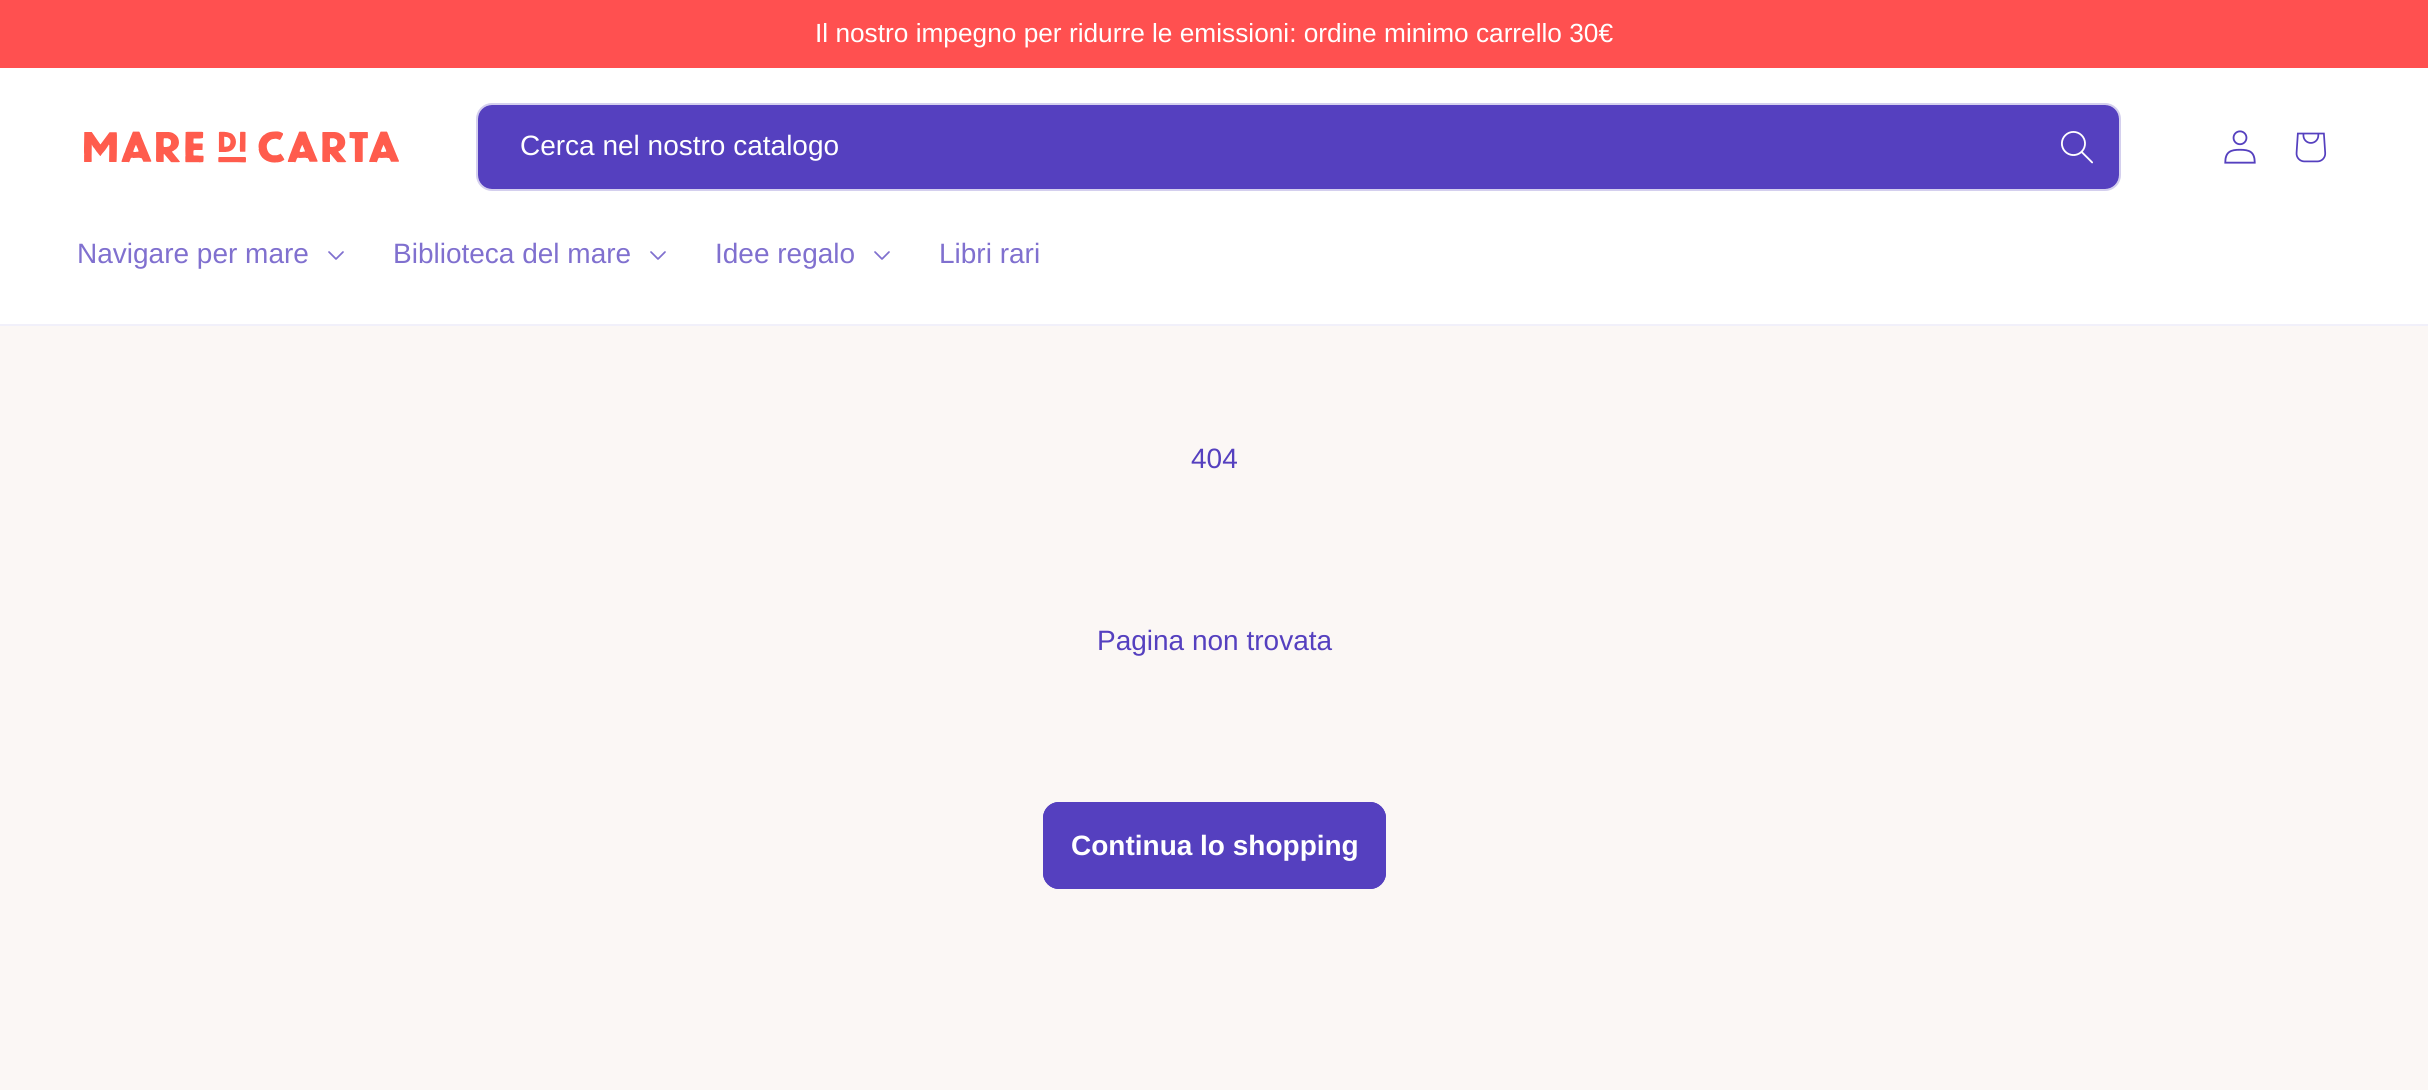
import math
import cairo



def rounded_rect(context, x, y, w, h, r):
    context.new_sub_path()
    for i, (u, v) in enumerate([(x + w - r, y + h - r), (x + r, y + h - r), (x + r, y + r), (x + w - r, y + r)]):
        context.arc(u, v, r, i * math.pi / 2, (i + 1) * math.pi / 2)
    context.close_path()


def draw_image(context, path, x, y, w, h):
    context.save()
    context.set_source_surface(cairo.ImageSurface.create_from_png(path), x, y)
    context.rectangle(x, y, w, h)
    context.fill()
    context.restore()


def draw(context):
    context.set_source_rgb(251 / 255, 247 / 255, 245 / 255)
    context.paint()
    context.set_source_rgb(1, 80 / 255, 80 / 255)
    context.rectangle(0, 0, 2428, 68)
    context.fill()
    context.set_source_rgb(1, 1, 1)
    context.rectangle(0, 68, 2428, 256)
    context.fill()
    context.set_source_rgb(241 / 255, 240 / 255, 250 / 255)
    context.rectangle(0, 324, 2428, 2)
    context.fill()
    draw_image(context, "images/1.png", 84, 131, 315, 32)
    context.set_source_rgb(85 / 255, 64 / 255, 191 / 255)
    rounded_rect(context, 478, 105, 1641, 84, 14)
    context.fill()
    draw_image(context, "images/2.png", 2061, 131, 32, 33)
    rounded_rect(context, 477, 104, 1643, 86, 15)
    context.set_source_rgba(85 / 255, 64 / 255, 191 / 255, 0.25)
    context.stroke()
    draw_image(context, "images/3.png", 2224, 130, 32, 34)
    draw_image(context, "images/4.png", 2295, 132, 32, 31)
    draw_image(context, "images/5.png", 328, 251, 16, 9)
    draw_image(context, "images/5.png", 650, 251, 16, 9)
    draw_image(context, "images/5.png", 874, 251, 16, 9)
    context.set_source_rgb(85 / 255, 64 / 255, 191 / 255)
    rounded_rect(context, 1043, 802, 343, 87, 16)
    context.fill()
    rounded_rect(context, 1044, 803, 341, 85, 15)
    context.stroke()
    context.select_font_face("Liberation Sans")
    context.set_font_size(26.25)
    context.set_source_rgb(1, 1, 1)
    context.move_to(815, 42)
    context.show_text("Il nostro impegno per ridurre le emissioni: ordine minimo carrello 30€")
    context.set_font_size(28)
    context.move_to(520, 155)
    context.show_text("Cerca nel nostro catalogo")
    context.set_source_rgb(128 / 255, 112 / 255, 207 / 255)
    context.move_to(77, 263)
    context.show_text("Navigare per mare")
    context.move_to(393, 263)
    context.show_text("Biblioteca del mare")
    context.move_to(715, 263)
    context.show_text("Idee regalo")
    context.move_to(939, 263)
    context.show_text("Libri rari")
    context.set_source_rgb(85 / 255, 64 / 255, 191 / 255)
    context.move_to(1191, 468)
    context.show_text("404")
    context.move_to(1097, 650)
    context.show_text("Pagina non trovata")
    context.select_font_face("Liberation Sans", cairo.FontSlant.NORMAL, cairo.FontWeight.BOLD)
    context.set_source_rgb(1, 1, 1)
    context.move_to(1071, 855)
    context.show_text("Continua lo shopping")


surface = cairo.ImageSurface(cairo.Format.RGB24, 2428, 1090)
context = cairo.Context(surface)
options = cairo.FontOptions()
options.set_hint_metrics(cairo.HintMetrics.OFF)
options.set_hint_style(cairo.HintStyle.NONE)
context.set_font_options(options)
context.set_miter_limit(4)
draw(context)
surface.write_to_png("out.png")
